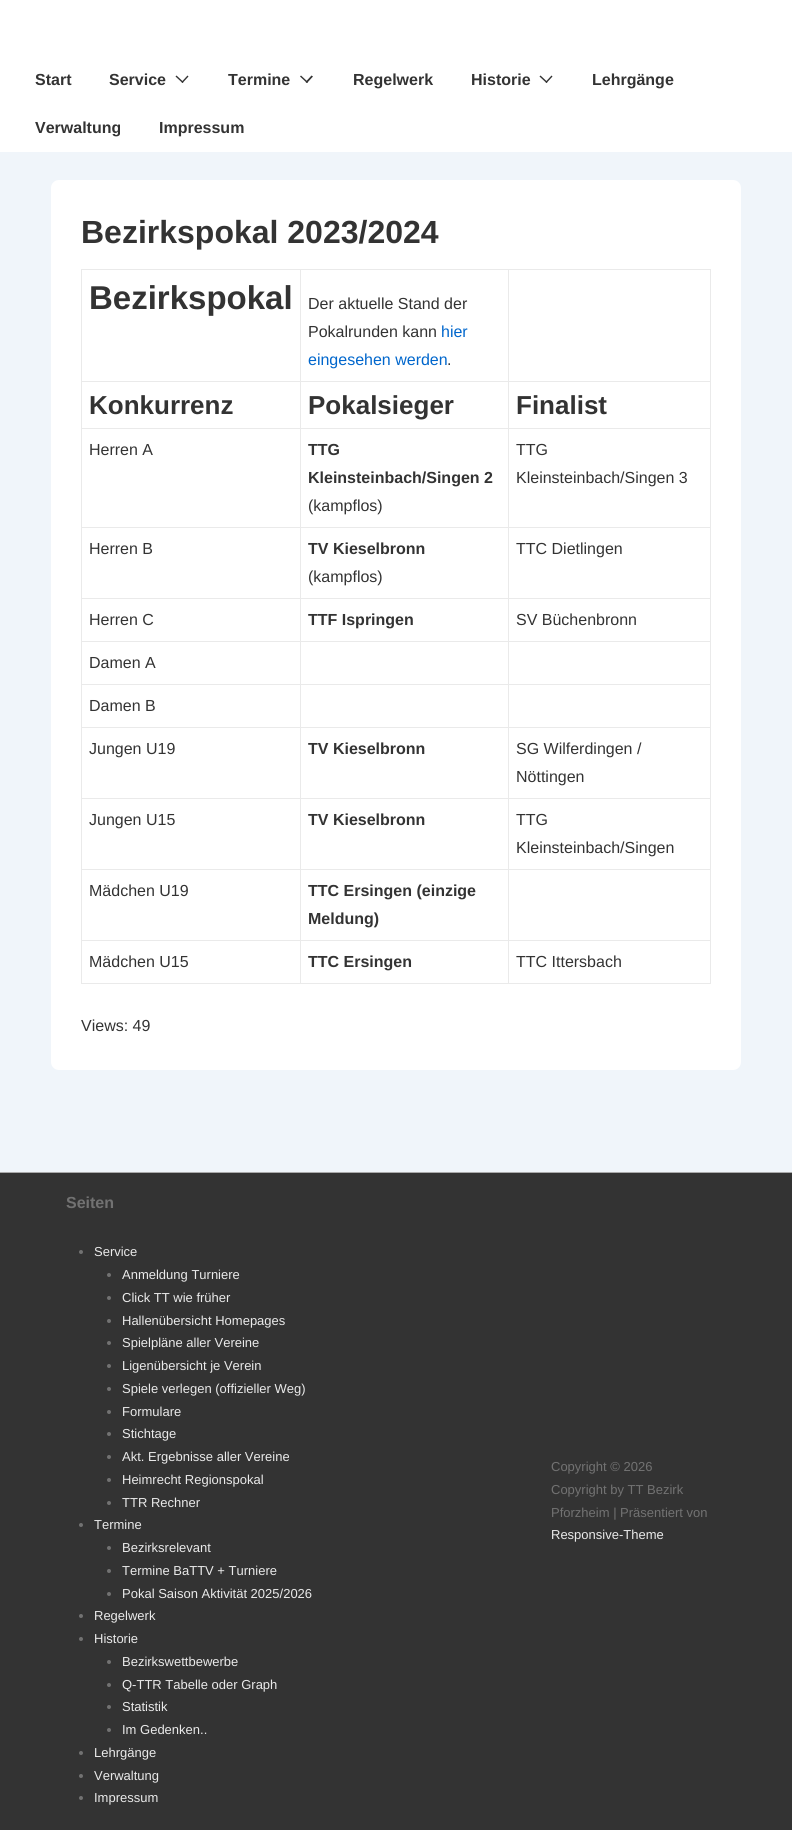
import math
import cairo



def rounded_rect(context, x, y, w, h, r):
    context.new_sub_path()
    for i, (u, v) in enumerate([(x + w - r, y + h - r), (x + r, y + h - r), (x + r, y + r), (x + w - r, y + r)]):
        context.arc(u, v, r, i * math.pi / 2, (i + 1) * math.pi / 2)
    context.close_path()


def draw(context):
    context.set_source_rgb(240 / 255, 245 / 255, 250 / 255)
    context.paint()
    context.set_source_rgb(1, 1, 1)
    context.rectangle(0, 0, 792, 152)
    context.fill()
    context.set_source_rgb(51 / 255, 51 / 255, 51 / 255)
    context.new_path()
    context.move_to(175.5, 76.5)
    context.line_to(176.5, 75.5)
    context.line_to(183.5, 82)
    context.line_to(182.5, 83)
    context.close_path()
    context.fill()
    context.new_path()
    context.move_to(181.5, 82)
    context.line_to(187.5, 75.5)
    context.line_to(188.5, 76.5)
    context.line_to(182.5, 83)
    context.close_path()
    context.fill()
    context.new_path()
    context.move_to(300, 76.5)
    context.line_to(301, 75.5)
    context.line_to(308, 82)
    context.line_to(307, 83)
    context.close_path()
    context.fill()
    context.new_path()
    context.move_to(305.5, 82)
    context.line_to(311.5, 75.5)
    context.line_to(313, 76.5)
    context.line_to(307, 83)
    context.close_path()
    context.fill()
    context.new_path()
    context.move_to(539.5, 76.5)
    context.line_to(540.5, 75.5)
    context.line_to(547.5, 82)
    context.line_to(546.5, 83)
    context.close_path()
    context.fill()
    context.new_path()
    context.move_to(545.5, 82)
    context.line_to(551.5, 75.5)
    context.line_to(552.5, 76.5)
    context.line_to(546.5, 83)
    context.close_path()
    context.fill()
    context.set_source_rgb(1, 1, 1)
    rounded_rect(context, 51, 180, 690, 890, 8)
    context.fill()
    context.set_source_rgb(234 / 255, 234 / 255, 234 / 255)
    context.rectangle(81, 269, 630, 1)
    context.fill()
    context.rectangle(710, 269, 1, 715)
    context.fill()
    context.rectangle(81, 983, 630, 1)
    context.fill()
    context.rectangle(81, 269, 1, 715)
    context.fill()
    context.rectangle(508, 381, 203, 1)
    context.fill()
    context.rectangle(508, 428, 203, 1)
    context.fill()
    context.rectangle(508, 527, 203, 1)
    context.fill()
    context.rectangle(508, 598, 203, 1)
    context.fill()
    context.rectangle(508, 641, 203, 1)
    context.fill()
    context.rectangle(508, 684, 203, 1)
    context.fill()
    context.rectangle(508, 727, 203, 1)
    context.fill()
    context.rectangle(508, 798, 203, 1)
    context.fill()
    context.rectangle(508, 869, 203, 1)
    context.fill()
    context.rectangle(508, 940, 203, 1)
    context.fill()
    context.rectangle(508, 940, 1, 44)
    context.fill()
    context.rectangle(300, 940, 209, 1)
    context.fill()
    context.rectangle(508, 869, 1, 72)
    context.fill()
    context.rectangle(300, 869, 209, 1)
    context.fill()
    context.rectangle(508, 798, 1, 72)
    context.fill()
    context.rectangle(300, 798, 209, 1)
    context.fill()
    context.rectangle(508, 727, 1, 72)
    context.fill()
    context.rectangle(300, 727, 209, 1)
    context.fill()
    context.rectangle(508, 684, 1, 44)
    context.fill()
    context.rectangle(300, 684, 209, 1)
    context.fill()
    context.rectangle(508, 641, 1, 44)
    context.fill()
    context.rectangle(300, 641, 209, 1)
    context.fill()
    context.rectangle(508, 598, 1, 44)
    context.fill()
    context.rectangle(300, 598, 209, 1)
    context.fill()
    context.rectangle(508, 527, 1, 72)
    context.fill()
    context.rectangle(300, 527, 209, 1)
    context.fill()
    context.rectangle(508, 428, 1, 100)
    context.fill()
    context.rectangle(300, 428, 209, 1)
    context.fill()
    context.rectangle(508, 381, 1, 48)
    context.fill()
    context.rectangle(300, 381, 209, 1)
    context.fill()
    context.rectangle(300, 940, 1, 44)
    context.fill()
    context.rectangle(81, 940, 220, 1)
    context.fill()
    context.rectangle(300, 869, 1, 72)
    context.fill()
    context.rectangle(81, 869, 220, 1)
    context.fill()
    context.rectangle(300, 798, 1, 72)
    context.fill()
    context.rectangle(81, 798, 220, 1)
    context.fill()
    context.rectangle(300, 727, 1, 72)
    context.fill()
    context.rectangle(81, 727, 220, 1)
    context.fill()
    context.rectangle(300, 684, 1, 44)
    context.fill()
    context.rectangle(81, 684, 220, 1)
    context.fill()
    context.rectangle(300, 641, 1, 44)
    context.fill()
    context.rectangle(81, 641, 220, 1)
    context.fill()
    context.rectangle(300, 598, 1, 44)
    context.fill()
    context.rectangle(81, 598, 220, 1)
    context.fill()
    context.rectangle(300, 527, 1, 72)
    context.fill()
    context.rectangle(81, 527, 220, 1)
    context.fill()
    context.rectangle(300, 428, 1, 100)
    context.fill()
    context.rectangle(81, 428, 220, 1)
    context.fill()
    context.rectangle(300, 381, 1, 48)
    context.fill()
    context.rectangle(81, 381, 220, 1)
    context.fill()
    context.rectangle(300, 269, 1, 113)
    context.fill()
    context.rectangle(508, 269, 1, 113)
    context.fill()
    context.set_source_rgb(51 / 255, 51 / 255, 51 / 255)
    context.rectangle(0, 1173, 792, 657)
    context.fill()
    context.set_source_rgb(170 / 255, 170 / 255, 170 / 255)
    context.rectangle(0, 1172, 792, 1)
    context.fill()
    context.set_source_rgb(114 / 255, 114 / 255, 114 / 255)
    context.arc(81, 1252, 2, 0, 2 * math.pi)
    context.fill()
    context.arc(109, 1275, 2, 0, 2 * math.pi)
    context.fill()
    context.arc(109, 1298, 2, 0, 2 * math.pi)
    context.fill()
    context.arc(109, 1321, 2, 0, 2 * math.pi)
    context.fill()
    context.arc(109, 1343, 2, 0, 2 * math.pi)
    context.fill()
    context.arc(109, 1366, 2, 0, 2 * math.pi)
    context.fill()
    context.arc(109, 1389, 2, 0, 2 * math.pi)
    context.fill()
    context.arc(109, 1412, 2, 0, 2 * math.pi)
    context.fill()
    context.arc(109, 1434, 2, 0, 2 * math.pi)
    context.fill()
    context.arc(109, 1457, 2, 0, 2 * math.pi)
    context.fill()
    context.arc(109, 1480, 2, 0, 2 * math.pi)
    context.fill()
    context.arc(109, 1503, 2, 0, 2 * math.pi)
    context.fill()
    context.arc(81, 1525, 2, 0, 2 * math.pi)
    context.fill()
    context.arc(109, 1548, 2, 0, 2 * math.pi)
    context.fill()
    context.arc(109, 1571, 2, 0, 2 * math.pi)
    context.fill()
    context.arc(109, 1594, 2, 0, 2 * math.pi)
    context.fill()
    context.arc(81, 1616, 2, 0, 2 * math.pi)
    context.fill()
    context.arc(81, 1639, 2, 0, 2 * math.pi)
    context.fill()
    context.arc(109, 1662, 2, 0, 2 * math.pi)
    context.fill()
    context.arc(109, 1685, 2, 0, 2 * math.pi)
    context.fill()
    context.arc(109, 1707, 2, 0, 2 * math.pi)
    context.fill()
    context.arc(109, 1730, 2, 0, 2 * math.pi)
    context.fill()
    context.arc(81, 1753, 2, 0, 2 * math.pi)
    context.fill()
    context.arc(81, 1776, 2, 0, 2 * math.pi)
    context.fill()
    context.arc(81, 1798, 2, 0, 2 * math.pi)
    context.fill()
    context.select_font_face("Liberation Sans", cairo.FontSlant.NORMAL, cairo.FontWeight.BOLD)
    context.set_font_size(16)
    context.set_source_rgb(51 / 255, 51 / 255, 51 / 255)
    context.move_to(35, 85)
    context.show_text("Start")
    context.move_to(109, 85)
    context.show_text("Service")
    context.move_to(228, 85)
    context.show_text("Termine")
    context.move_to(353, 85)
    context.show_text("Regelwerk")
    context.move_to(471, 85)
    context.show_text("Historie")
    context.move_to(592, 85)
    context.show_text("Lehrgänge")
    context.move_to(35, 133)
    context.show_text("Verwaltung")
    context.move_to(159, 133)
    context.show_text("Impressum")
    context.set_font_size(32)
    context.move_to(81, 243)
    context.show_text("Bezirkspokal 2023/2024")
    context.set_font_size(33)
    context.move_to(89, 309)
    context.show_text("Bezirkspokal")
    context.select_font_face("Liberation Sans")
    context.set_font_size(16)
    context.move_to(308, 309)
    context.show_text("Der aktuelle Stand der")
    context.move_to(308, 337)
    context.show_text("Pokalrunden kann")
    context.set_source_rgb(0, 102 / 255, 204 / 255)
    context.move_to(441, 337)
    context.show_text("hier")
    context.move_to(308, 365)
    context.show_text("eingesehen werden")
    context.set_source_rgb(51 / 255, 51 / 255, 51 / 255)
    context.move_to(447, 365)
    context.show_text(".")
    context.select_font_face("Liberation Sans", cairo.FontSlant.NORMAL, cairo.FontWeight.BOLD)
    context.set_font_size(26)
    context.move_to(89, 414)
    context.show_text("Konkurrenz")
    context.move_to(308, 414)
    context.show_text("Pokalsieger")
    context.move_to(516, 414)
    context.show_text("Finalist")
    context.select_font_face("Liberation Sans")
    context.set_font_size(16)
    context.move_to(89, 455)
    context.show_text("Herren A")
    context.select_font_face("Liberation Sans", cairo.FontSlant.NORMAL, cairo.FontWeight.BOLD)
    context.move_to(308, 455)
    context.show_text("TTG")
    context.move_to(308, 483)
    context.show_text("Kleinsteinbach/Singen 2")
    context.select_font_face("Liberation Sans")
    context.move_to(308, 511)
    context.show_text("(kampflos)")
    context.move_to(516, 455)
    context.show_text("TTG")
    context.move_to(516, 483)
    context.show_text("Kleinsteinbach/Singen 3")
    context.move_to(89, 554)
    context.show_text("Herren B")
    context.select_font_face("Liberation Sans", cairo.FontSlant.NORMAL, cairo.FontWeight.BOLD)
    context.move_to(308, 554)
    context.show_text("TV Kieselbronn")
    context.select_font_face("Liberation Sans")
    context.move_to(308, 582)
    context.show_text("(kampflos)")
    context.move_to(516, 554)
    context.show_text("TTC Dietlingen")
    context.move_to(89, 625)
    context.show_text("Herren C")
    context.select_font_face("Liberation Sans", cairo.FontSlant.NORMAL, cairo.FontWeight.BOLD)
    context.move_to(308, 625)
    context.show_text("TTF Ispringen")
    context.select_font_face("Liberation Sans")
    context.move_to(516, 625)
    context.show_text("SV Büchenbronn")
    context.move_to(89, 668)
    context.show_text("Damen A")
    context.move_to(89, 711)
    context.show_text("Damen B")
    context.move_to(89, 754)
    context.show_text("Jungen U19")
    context.select_font_face("Liberation Sans", cairo.FontSlant.NORMAL, cairo.FontWeight.BOLD)
    context.move_to(308, 754)
    context.show_text("TV Kieselbronn")
    context.select_font_face("Liberation Sans")
    context.move_to(516, 754)
    context.show_text("SG Wilferdingen /")
    context.move_to(516, 782)
    context.show_text("Nöttingen")
    context.move_to(89, 825)
    context.show_text("Jungen U15")
    context.select_font_face("Liberation Sans", cairo.FontSlant.NORMAL, cairo.FontWeight.BOLD)
    context.move_to(308, 825)
    context.show_text("TV Kieselbronn")
    context.select_font_face("Liberation Sans")
    context.move_to(516, 825)
    context.show_text("TTG")
    context.move_to(516, 853)
    context.show_text("Kleinsteinbach/Singen")
    context.move_to(89, 896)
    context.show_text("Mädchen U19")
    context.select_font_face("Liberation Sans", cairo.FontSlant.NORMAL, cairo.FontWeight.BOLD)
    context.move_to(308, 896)
    context.show_text("TTC Ersingen (einzige")
    context.move_to(308, 924)
    context.show_text("Meldung)")
    context.select_font_face("Liberation Sans")
    context.move_to(89, 967)
    context.show_text("Mädchen U15")
    context.select_font_face("Liberation Sans", cairo.FontSlant.NORMAL, cairo.FontWeight.BOLD)
    context.move_to(308, 967)
    context.show_text("TTC Ersingen")
    context.select_font_face("Liberation Sans")
    context.move_to(516, 967)
    context.show_text("TTC Ittersbach")
    context.move_to(81, 1031)
    context.show_text("Views: 49")
    context.select_font_face("Liberation Sans", cairo.FontSlant.NORMAL, cairo.FontWeight.BOLD)
    context.set_source_rgb(114 / 255, 114 / 255, 114 / 255)
    context.move_to(66, 1208)
    context.show_text("Seiten")
    context.select_font_face("Liberation Sans")
    context.set_font_size(13)
    context.set_source_rgb(234 / 255, 234 / 255, 234 / 255)
    context.move_to(94, 1256)
    context.show_text("Service")
    context.move_to(122, 1279)
    context.show_text("Anmeldung Turniere")
    context.move_to(122, 1302)
    context.show_text("Click TT wie früher")
    context.move_to(122, 1325)
    context.show_text("Hallenübersicht Homepages")
    context.move_to(122, 1347)
    context.show_text("Spielpläne aller Vereine")
    context.move_to(122, 1370)
    context.show_text("Ligenübersicht je Verein")
    context.move_to(122, 1393)
    context.show_text("Spiele verlegen (offizieller Weg)")
    context.move_to(122, 1416)
    context.show_text("Formulare")
    context.move_to(122, 1438)
    context.show_text("Stichtage")
    context.move_to(122, 1461)
    context.show_text("Akt. Ergebnisse aller Vereine")
    context.move_to(122, 1484)
    context.show_text("Heimrecht Regionspokal")
    context.move_to(122, 1507)
    context.show_text("TTR Rechner")
    context.move_to(94, 1529)
    context.show_text("Termine")
    context.move_to(122, 1552)
    context.show_text("Bezirksrelevant")
    context.move_to(122, 1575)
    context.show_text("Termine BaTTV + Turniere")
    context.move_to(122, 1598)
    context.show_text("Pokal Saison Aktivität 2025/2026")
    context.move_to(94, 1620)
    context.show_text("Regelwerk")
    context.move_to(94, 1643)
    context.show_text("Historie")
    context.move_to(122, 1666)
    context.show_text("Bezirkswettbewerbe")
    context.move_to(122, 1689)
    context.show_text("Q-TTR Tabelle oder Graph")
    context.move_to(122, 1711)
    context.show_text("Statistik")
    context.move_to(122, 1734)
    context.show_text("Im Gedenken..")
    context.move_to(94, 1757)
    context.show_text("Lehrgänge")
    context.move_to(94, 1780)
    context.show_text("Verwaltung")
    context.move_to(94, 1802)
    context.show_text("Impressum")
    context.set_source_rgb(114 / 255, 114 / 255, 114 / 255)
    context.move_to(551, 1471)
    context.show_text("Copyright © 2026")
    context.move_to(551, 1494)
    context.show_text("Copyright by TT Bezirk")
    context.move_to(551, 1517)
    context.show_text("Pforzheim | Präsentiert von")
    context.set_source_rgb(234 / 255, 234 / 255, 234 / 255)
    context.move_to(551, 1539)
    context.show_text("Responsive-Theme")


surface = cairo.ImageSurface(cairo.Format.RGB24, 792, 1830)
context = cairo.Context(surface)
options = cairo.FontOptions()
options.set_hint_metrics(cairo.HintMetrics.OFF)
options.set_hint_style(cairo.HintStyle.NONE)
context.set_font_options(options)
context.set_miter_limit(4)
draw(context)
surface.write_to_png("out.png")
